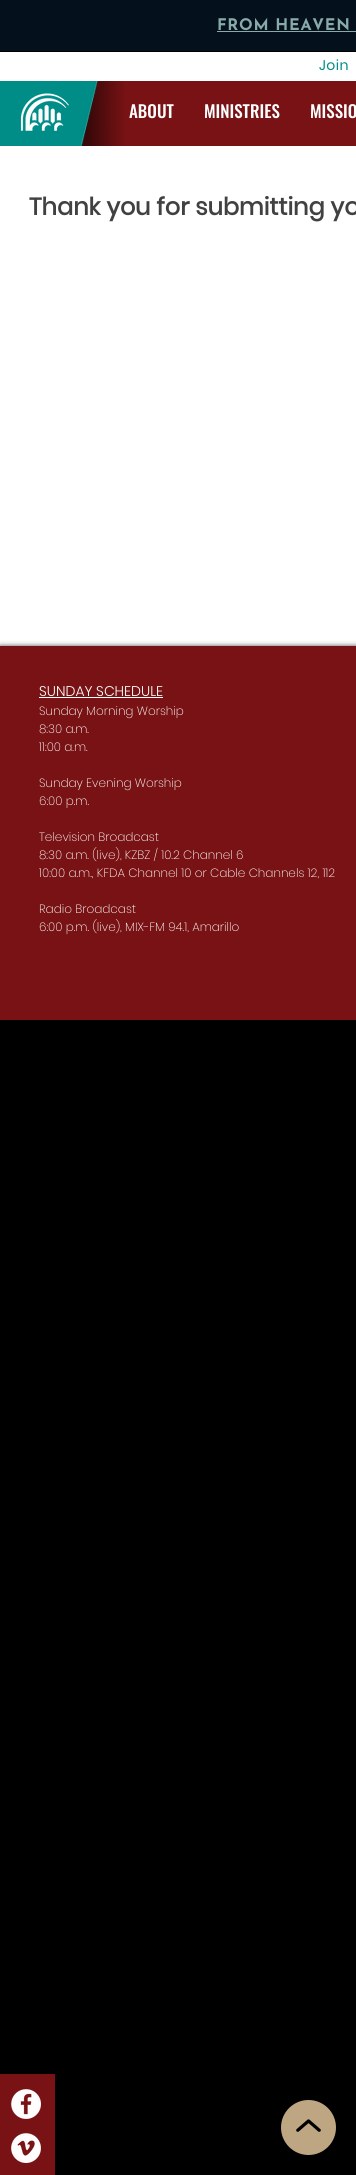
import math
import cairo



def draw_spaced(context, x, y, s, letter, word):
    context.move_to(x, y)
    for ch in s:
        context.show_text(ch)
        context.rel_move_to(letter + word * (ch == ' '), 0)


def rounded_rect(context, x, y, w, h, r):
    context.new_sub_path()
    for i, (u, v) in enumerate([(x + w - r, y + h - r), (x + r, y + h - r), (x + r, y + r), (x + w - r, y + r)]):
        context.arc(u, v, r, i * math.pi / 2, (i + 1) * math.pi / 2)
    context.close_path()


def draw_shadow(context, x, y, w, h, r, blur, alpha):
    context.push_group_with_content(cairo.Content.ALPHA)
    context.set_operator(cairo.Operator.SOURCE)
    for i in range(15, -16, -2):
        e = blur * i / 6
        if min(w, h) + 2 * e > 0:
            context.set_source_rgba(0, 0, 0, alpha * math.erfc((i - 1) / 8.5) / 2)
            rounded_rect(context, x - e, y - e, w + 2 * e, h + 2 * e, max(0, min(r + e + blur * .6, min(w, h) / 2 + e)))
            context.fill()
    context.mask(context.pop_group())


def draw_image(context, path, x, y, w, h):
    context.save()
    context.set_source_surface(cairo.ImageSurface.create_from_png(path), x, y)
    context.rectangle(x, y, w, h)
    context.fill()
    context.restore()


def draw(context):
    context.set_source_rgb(0, 0, 0)
    context.paint()
    context.set_source_rgb(4 / 255, 16 / 255, 28 / 255)
    context.rectangle(0, 0, 356, 51)
    context.fill()
    context.set_source_rgb(136 / 255, 171 / 255, 170 / 255)
    context.rectangle(217, 31, 139, 1)
    context.fill()
    context.set_source_rgb(1, 1, 1)
    context.rectangle(0, 52, 356, 29)
    context.fill()
    context.set_source_rgb(0, 141 / 255, 135 / 255)
    context.rectangle(0, 81, 80, 65)
    context.fill()
    draw_image(context, "images/1.png", 20, 93, 49, 38)
    context.set_source_rgb(120 / 255, 18 / 255, 20 / 255)
    context.rectangle(80, 81, 276, 65)
    context.fill()
    draw_image(context, "images/2.png", 80, 81, 44, 65)
    context.set_source_rgb(1, 1, 1)
    context.rectangle(0, 146, 356, 500)
    context.fill()
    context.set_source_rgb(0, 0, 0)
    draw_shadow(context, 0, 646, 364, 374, 0, 2.5, 0.7)
    context.set_source_rgb(120 / 255, 18 / 255, 20 / 255)
    context.rectangle(0, 646, 356, 374)
    context.fill()
    context.set_source_rgb(1, 1, 1)
    context.rectangle(39, 697, 124, 1)
    context.fill()
    context.set_source_rgb(120 / 255, 18 / 255, 20 / 255)
    context.rectangle(0, 2074, 55, 101)
    context.fill()
    draw_image(context, "images/3.png", 11, 2089, 30, 30)
    draw_image(context, "images/4.png", 11, 2133, 30, 30)
    draw_image(context, "images/5.png", 281, 2100, 55, 55)
    context.select_font_face("Josefin Sans", cairo.FontSlant.NORMAL, cairo.FontWeight.BOLD)
    context.set_font_size(16)
    context.set_source_rgb(136 / 255, 171 / 255, 170 / 255)
    draw_spaced(context, 217, 30, "FROM HEAVEN", 0.75, 0)
    context.select_font_face("Poppins")
    context.set_font_size(14)
    context.set_source_rgb(0, 141 / 255, 135 / 255)
    draw_spaced(context, 319, 70, "Join", 0.5, 0)
    context.select_font_face("Oswald Medium")
    context.set_font_size(17)
    context.set_source_rgb(1, 1, 1)
    context.move_to(129, 118)
    context.show_text("ABOUT")
    context.move_to(204, 118)
    context.show_text("MINISTRIES")
    context.move_to(310, 118)
    context.show_text("MISSIO")
    context.select_font_face("Poppins", cairo.FontSlant.NORMAL, cairo.FontWeight.BOLD)
    context.set_font_size(24)
    context.set_source_rgb(65 / 255, 65 / 255, 65 / 255)
    context.move_to(29, 215)
    context.show_text("Thank you for submitting yo")
    context.select_font_face("Poppins Light")
    context.set_font_size(14)
    context.set_source_rgb(1, 1, 1)
    context.move_to(39, 696)
    context.show_text("SUNDAY SCHEDULE")
    context.select_font_face("Poppins ExtraLight")
    context.set_font_size(12)
    context.move_to(39, 715)
    context.show_text("Sunday Morning Worship")
    context.move_to(39, 733)
    context.show_text("8:30 a.m.")
    context.move_to(39, 751)
    context.show_text("11:00 a.m.")
    context.move_to(39, 787)
    context.show_text("Sunday Evening Worship")
    context.move_to(39, 805)
    context.show_text("6:00 p.m.")
    context.move_to(39, 841)
    context.show_text("Television Broadcast")
    context.move_to(39, 859)
    context.show_text("8:30 a.m. (live), KZBZ / 10.2 Channel 6")
    context.move_to(39, 877)
    context.show_text("10:00 a.m., KFDA Channel 10 or Cable Channels 12, 112")
    context.move_to(39, 913)
    context.show_text("Radio Broadcast")
    context.move_to(39, 931)
    context.show_text("6:00 p.m. (live), MIX-FM 94.1, Amarillo")


surface = cairo.ImageSurface(cairo.Format.RGB24, 356, 2175)
context = cairo.Context(surface)
options = cairo.FontOptions()
options.set_hint_metrics(cairo.HintMetrics.OFF)
options.set_hint_style(cairo.HintStyle.NONE)
context.set_font_options(options)
context.set_miter_limit(4)
draw(context)
surface.write_to_png("out.png")
